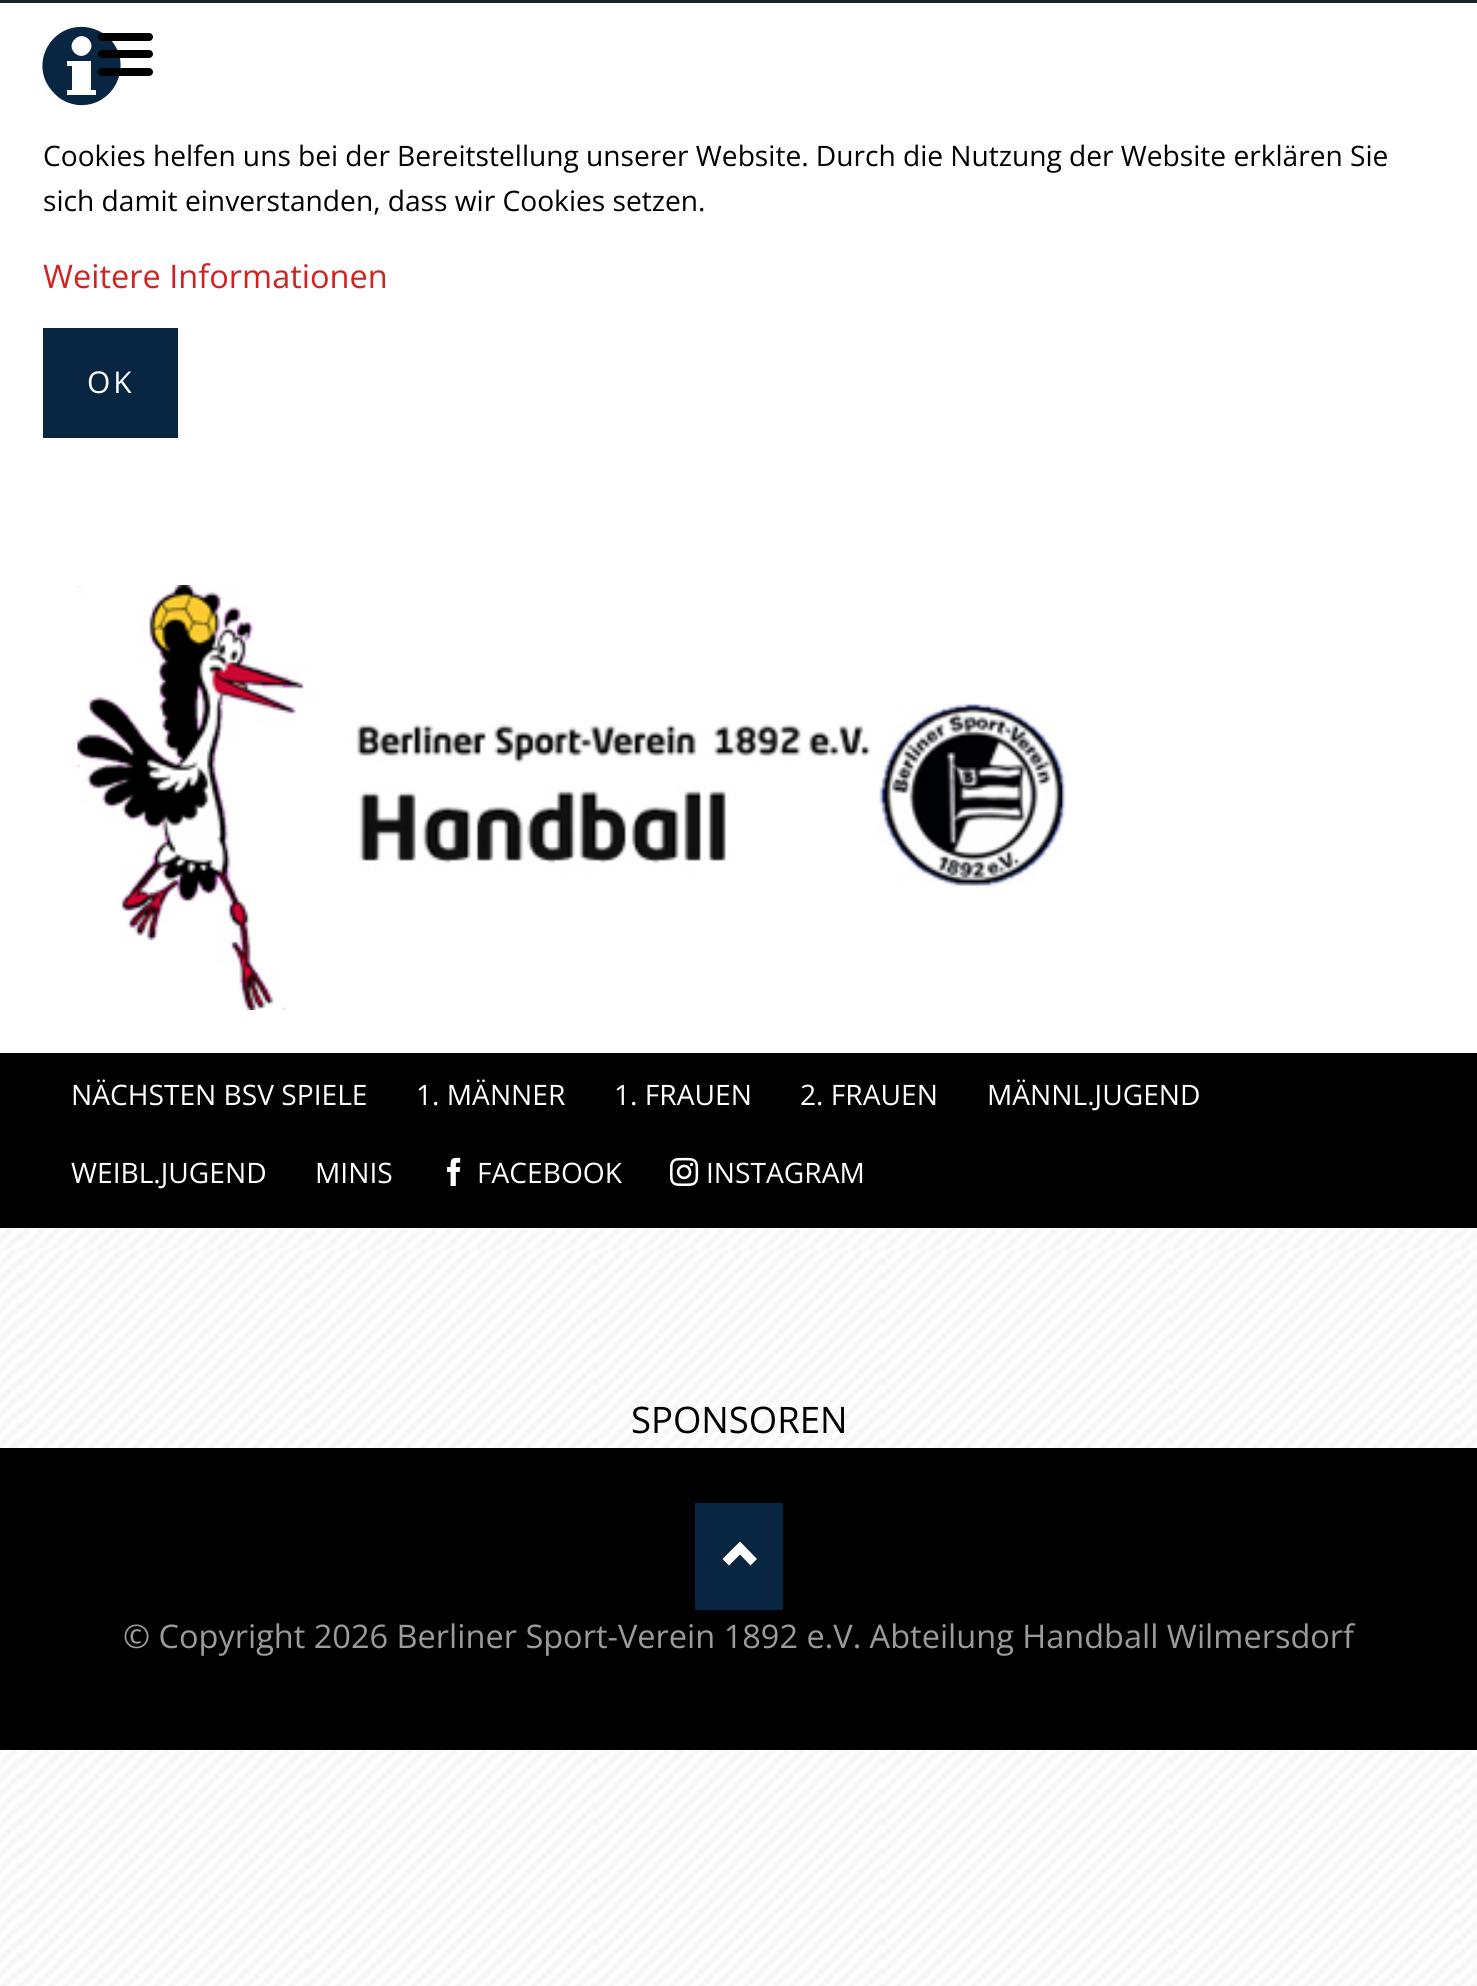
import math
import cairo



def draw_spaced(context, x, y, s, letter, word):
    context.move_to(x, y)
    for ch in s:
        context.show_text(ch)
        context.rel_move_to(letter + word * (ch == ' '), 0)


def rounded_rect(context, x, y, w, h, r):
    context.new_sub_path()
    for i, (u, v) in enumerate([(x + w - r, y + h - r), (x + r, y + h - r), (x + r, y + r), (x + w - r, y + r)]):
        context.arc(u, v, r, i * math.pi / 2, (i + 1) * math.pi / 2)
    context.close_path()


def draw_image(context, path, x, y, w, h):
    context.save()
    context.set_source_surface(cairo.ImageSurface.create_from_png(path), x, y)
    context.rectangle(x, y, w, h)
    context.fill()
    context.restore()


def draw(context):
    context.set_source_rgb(1, 1, 1)
    context.paint()
    draw_image(context, "images/1.png", 0, 1228, 1477, 758)
    context.set_source_rgb(8 / 255, 37 / 255, 65 / 255)
    context.new_path()
    context.move_to(109, 38)
    context.curve_to(103, 32, 94, 28, 85, 27)
    context.curve_to(49, 24, 28, 67, 54, 93)
    context.curve_to(60, 100, 69, 104, 78, 105)
    context.curve_to(114, 108, 135, 64, 109, 38)
    context.close_path()
    context.move_to(75, 39)
    context.curve_to(84, 30, 98, 44, 88, 53)
    context.curve_to(79, 62, 65, 48, 75, 39)
    context.close_path()
    context.move_to(96, 95)
    context.line_to(67, 95)
    context.line_to(67, 90)
    context.line_to(72, 90)
    context.line_to(72, 66)
    context.line_to(67, 66)
    context.line_to(67, 61)
    context.line_to(91, 61)
    context.line_to(91, 90)
    context.line_to(96, 90)
    context.close_path()
    context.fill()
    context.set_source_rgb(0, 0, 0)
    rounded_rect(context, 98, 68, 55, 8, 4)
    context.fill()
    rounded_rect(context, 98, 50, 55, 8, 4)
    context.fill()
    rounded_rect(context, 98, 33, 55, 8, 4)
    context.fill()
    context.set_source_rgb(29 / 255, 36 / 255, 41 / 255)
    context.rectangle(0, 0, 1477, 3)
    context.fill()
    context.set_source_rgb(8 / 255, 37 / 255, 65 / 255)
    context.rectangle(43, 328, 135, 110)
    context.fill()
    draw_image(context, "images/2.png", 77, 585, 989, 425)
    context.set_source_rgb(0, 0, 0)
    context.rectangle(0, 1053, 1477, 175)
    context.fill()
    draw_image(context, "images/3.png", 447, 1157, 14, 29)
    draw_image(context, "images/4.png", 670, 1157, 29, 29)
    context.rectangle(0, 1448, 1477, 302)
    context.fill()
    context.set_source_rgb(8 / 255, 37 / 255, 65 / 255)
    context.rectangle(695, 1503, 88, 107)
    context.fill()
    context.set_source_rgb(1, 1, 1)
    context.new_path()
    context.move_to(722.5, 1559)
    context.line_to(729, 1565.5)
    context.line_to(740, 1554.5)
    context.line_to(750.5, 1565.5)
    context.line_to(757, 1559)
    context.line_to(740, 1541.5)
    context.close_path()
    context.fill()
    context.select_font_face("Open Sans")
    context.set_font_size(28.15)
    context.set_source_rgb(0, 0, 0)
    draw_spaced(context, 43, 166, "Cookies helfen uns bei der Bereitstellung unserer Website. Durch die Nutzung der Website erklären Sie", 0, -0.1)
    context.move_to(43, 211)
    context.show_text("sich damit einverstanden, dass wir Cookies setzen.")
    context.set_font_size(32.5)
    context.set_source_rgb(209 / 255, 33 / 255, 33 / 255)
    context.move_to(43, 288)
    context.show_text("Weitere Informationen")
    context.set_font_size(30)
    context.set_source_rgb(1, 1, 1)
    draw_spaced(context, 87, 393, "OK", 3, 0)
    context.set_font_size(28.15)
    context.move_to(71, 1105)
    context.show_text("NÄCHSTEN BSV SPIELE")
    context.move_to(416, 1105)
    context.show_text("1. MÄNNER")
    context.move_to(614, 1105)
    context.show_text("1. FRAUEN")
    context.move_to(800, 1105)
    context.show_text("2. FRAUEN")
    context.move_to(987, 1105)
    context.show_text("MÄNNL.JUGEND")
    context.move_to(71, 1183)
    context.show_text("WEIBL.JUGEND")
    context.move_to(315, 1183)
    context.show_text("MINIS")
    context.move_to(477, 1183)
    context.show_text("FACEBOOK")
    context.move_to(706, 1183)
    context.show_text("INSTAGRAM")
    context.set_font_size(36.5)
    context.set_source_rgb(0, 0, 0)
    context.move_to(631, 1433)
    context.show_text("SPONSOREN")
    context.set_font_size(32.5)
    context.set_source_rgb(155 / 255, 155 / 255, 155 / 255)
    context.move_to(123, 1648)
    context.show_text("© Copyright 2026 Berliner Sport-Verein 1892 e.V. Abteilung Handball Wilmersdorf")


surface = cairo.ImageSurface(cairo.Format.RGB24, 1477, 1986)
context = cairo.Context(surface)
options = cairo.FontOptions()
options.set_hint_metrics(cairo.HintMetrics.OFF)
options.set_hint_style(cairo.HintStyle.NONE)
context.set_font_options(options)
context.set_miter_limit(4)
draw(context)
surface.write_to_png("out.png")
